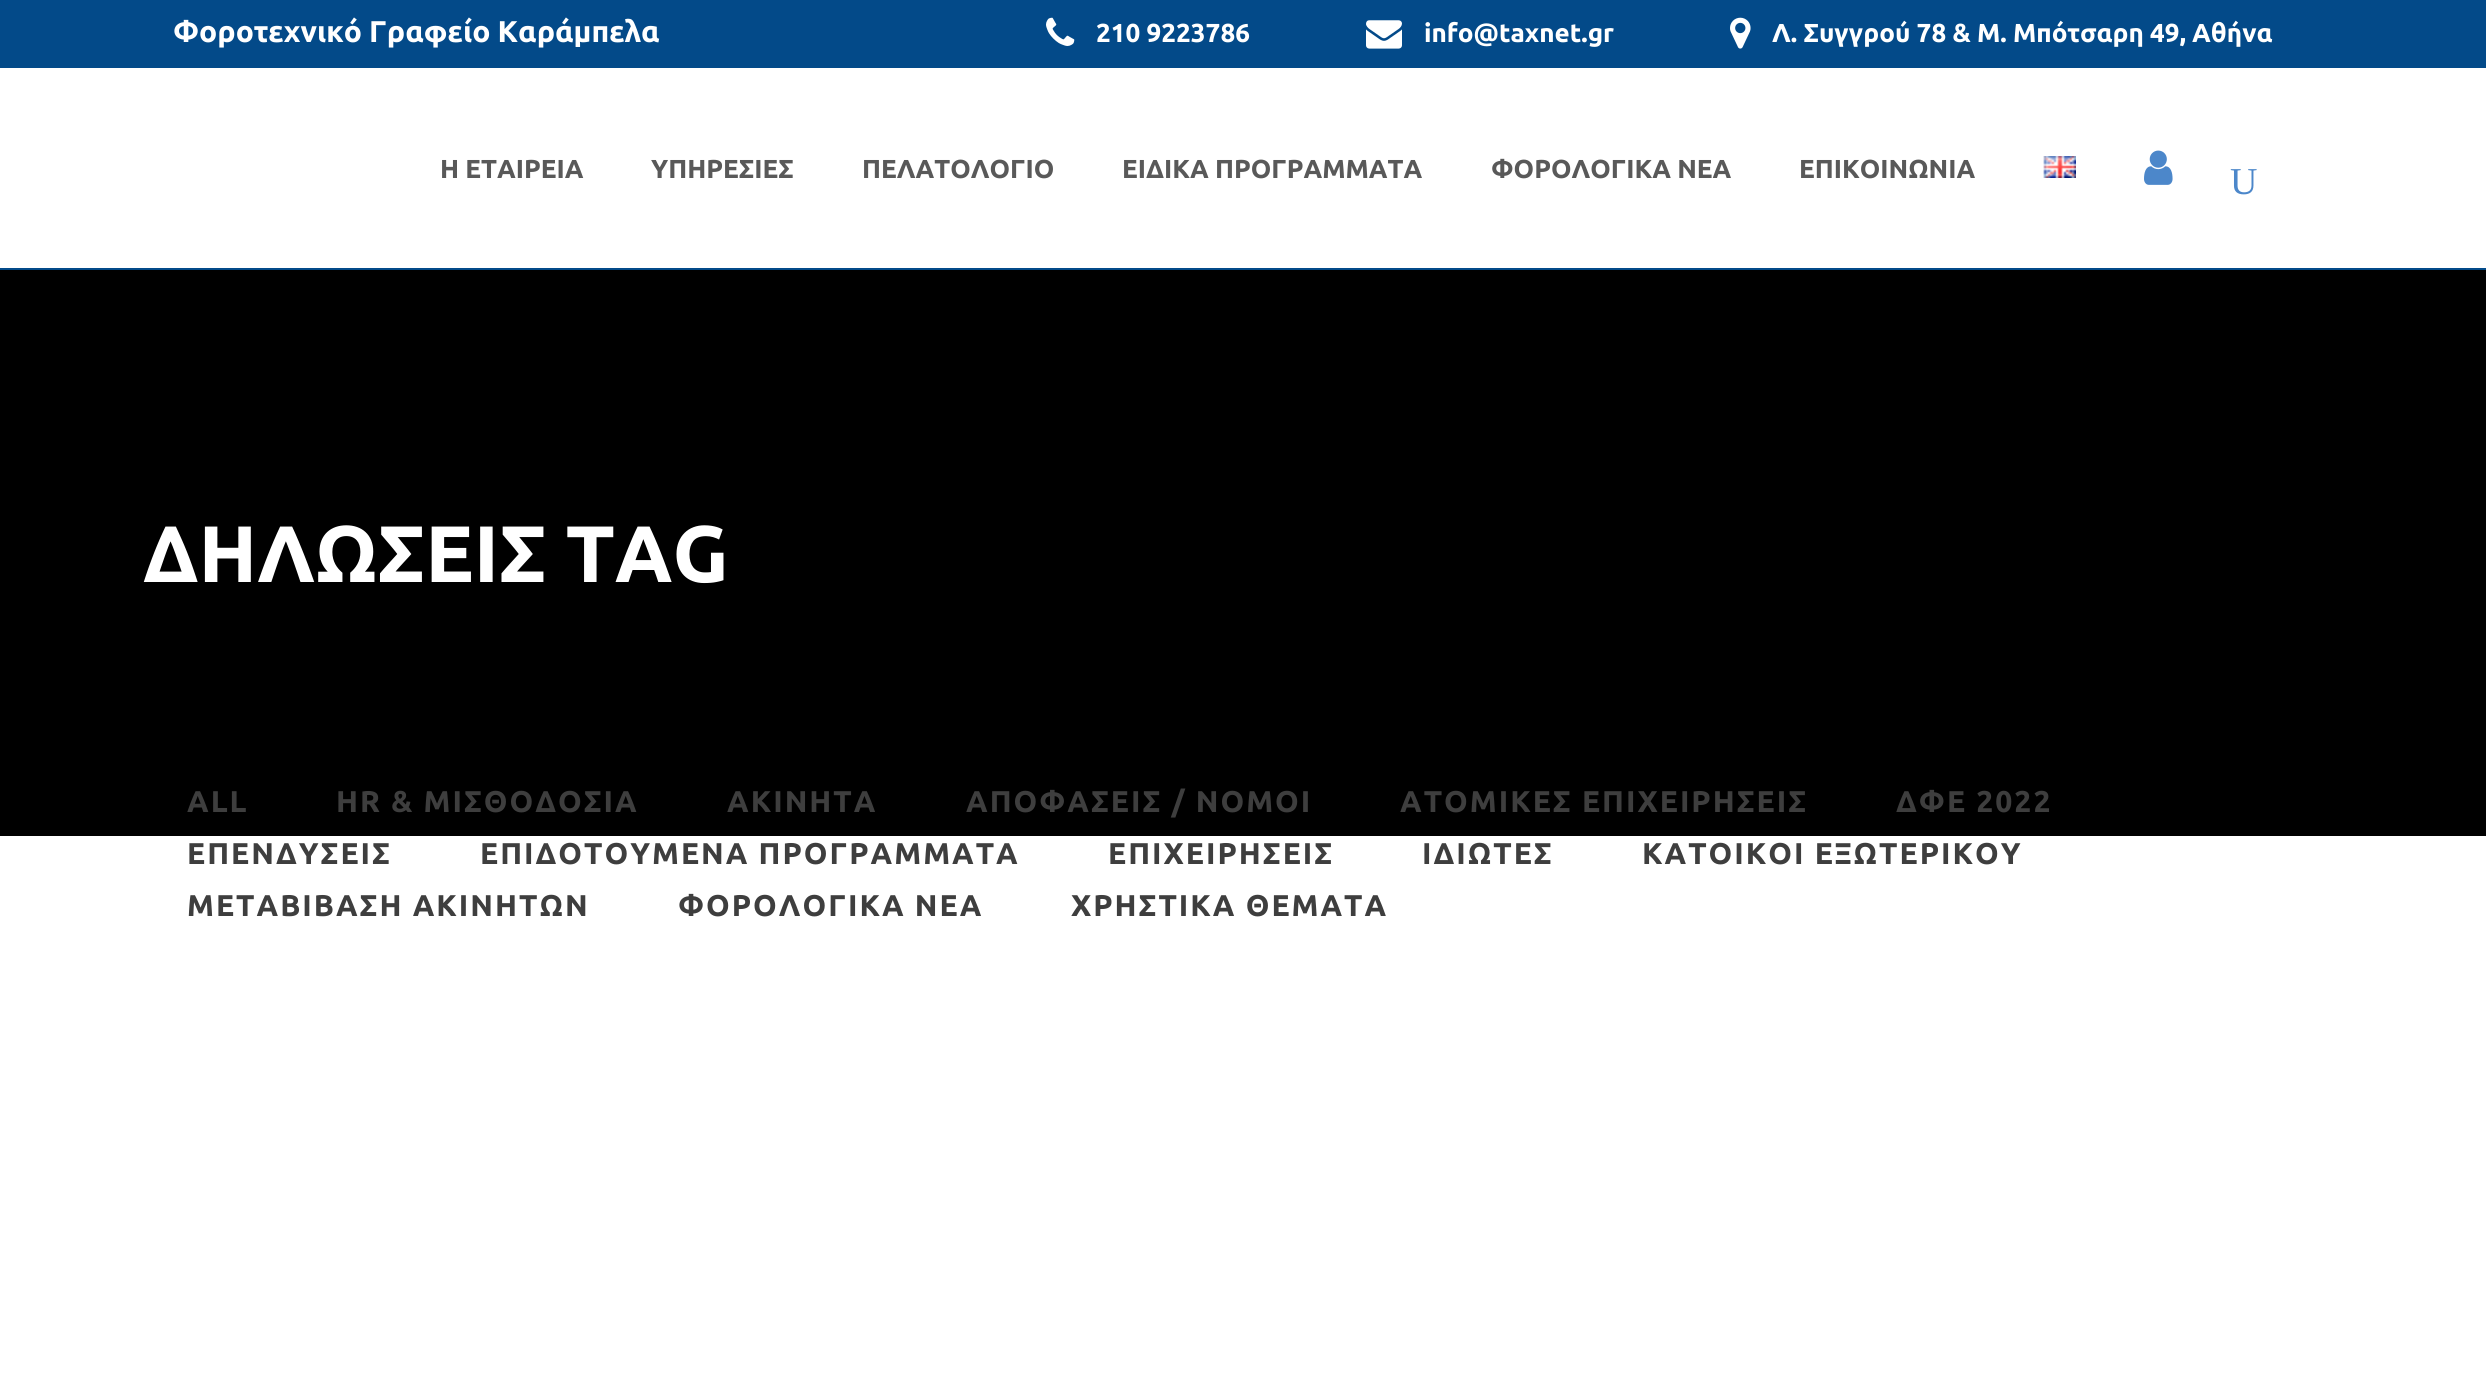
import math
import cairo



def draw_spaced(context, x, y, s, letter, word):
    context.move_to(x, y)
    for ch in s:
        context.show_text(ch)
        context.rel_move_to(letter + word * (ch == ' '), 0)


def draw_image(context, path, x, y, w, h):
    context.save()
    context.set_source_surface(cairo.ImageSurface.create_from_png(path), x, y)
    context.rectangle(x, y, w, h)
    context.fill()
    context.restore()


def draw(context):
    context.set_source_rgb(1, 1, 1)
    context.paint()
    context.set_source_rgb(3 / 255, 74 / 255, 137 / 255)
    context.rectangle(0, 0, 2486, 68)
    context.fill()
    draw_image(context, "images/1.png", 1046, 17, 29, 29)
    draw_image(context, "images/2.png", 1366, 20, 36, 29)
    draw_image(context, "images/3.png", 1730, 17, 21, 32)
    context.rectangle(0, 268, 2486, 2)
    context.fill()
    draw_image(context, "images/4.png", 2043, 156, 33, 22)
    draw_image(context, "images/5.png", 2144, 150, 29, 35)
    context.set_source_rgb(0, 0, 0)
    context.rectangle(0, 270, 2486, 566)
    context.fill()
    context.select_font_face("Ubuntu", cairo.FontSlant.NORMAL, cairo.FontWeight.BOLD)
    context.set_font_size(30)
    context.set_source_rgb(1, 1, 1)
    context.move_to(173, 42)
    context.show_text("Φοροτεχνικό Γραφείο Καράμπελα")
    context.set_font_size(26)
    context.move_to(1096, 42)
    context.show_text("210 9223786")
    context.move_to(1424, 42)
    context.show_text("info@taxnet.gr")
    context.move_to(1772, 42)
    context.show_text("Λ. Συγγρού 78 & Μ. Μπότσαρη 49, Αθήνα")
    context.set_source_rgb(89 / 255, 89 / 255, 89 / 255)
    context.move_to(440, 178)
    context.show_text("Η ΕΤΑΙΡΕΙΑ")
    context.move_to(651, 178)
    context.show_text("ΥΠΗΡΕΣΙΕΣ")
    context.move_to(862, 178)
    context.show_text("ΠΕΛΑΤΟΛΟΓΙΟ")
    context.move_to(1122, 178)
    context.show_text("ΕΙΔΙΚΑ ΠΡΟΓΡΑΜΜΑΤΑ")
    context.move_to(1491, 178)
    context.show_text("ΦΟΡΟΛΟΓΙΚΑ ΝΕΑ")
    context.move_to(1799, 178)
    context.show_text("ΕΠΙΚΟΙΝΩΝΙΑ")
    context.select_font_face("Liberation Serif")
    context.set_font_size(38)
    context.set_source_rgb(76 / 255, 135 / 255, 202 / 255)
    context.move_to(2230, 194)
    context.show_text("U")
    context.select_font_face("Ubuntu", cairo.FontSlant.NORMAL, cairo.FontWeight.BOLD)
    context.set_font_size(80)
    context.set_source_rgb(1, 1, 1)
    context.move_to(143, 582)
    context.show_text("ΔΗΛΩΣΕΙΣ TAG")
    context.set_font_size(30)
    context.set_source_rgb(62 / 255, 62 / 255, 62 / 255)
    draw_spaced(context, 187, 812, "ALL", 2, 0)
    draw_spaced(context, 336, 812, "HR & ΜΙΣΘΟΔΟΣΙΑ", 2, 0)
    draw_spaced(context, 727, 812, "ΑΚΙΝΗΤΑ", 2, 0)
    draw_spaced(context, 966, 812, "ΑΠΟΦΑΣΕΙΣ / ΝΟΜΟΙ", 2, 0)
    draw_spaced(context, 1400, 812, "ΑΤΟΜΙΚΕΣ ΕΠΙΧΕΙΡΗΣΕΙΣ", 2, 0)
    draw_spaced(context, 1896, 812, "ΔΦΕ 2022", 2, 0)
    draw_spaced(context, 187, 864, "ΕΠΕΝΔΥΣΕΙΣ", 2, 0)
    draw_spaced(context, 480, 864, "ΕΠΙΔΟΤΟΥΜΕΝΑ ΠΡΟΓΡΑΜΜΑΤΑ", 2, 0)
    draw_spaced(context, 1108, 864, "ΕΠΙΧΕΙΡΗΣΕΙΣ", 2, 0)
    draw_spaced(context, 1422, 864, "ΙΔΙΩΤΕΣ", 2, 0)
    draw_spaced(context, 1642, 864, "ΚΑΤΟΙΚΟΙ ΕΞΩΤΕΡΙΚΟΥ", 2, 0)
    draw_spaced(context, 187, 916, "ΜΕΤΑΒΙΒΑΣΗ ΑΚΙΝΗΤΩΝ", 2, 0)
    draw_spaced(context, 678, 916, "ΦΟΡΟΛΟΓΙΚΑ ΝΕΑ", 2, 0)
    draw_spaced(context, 1071, 916, "ΧΡΗΣΤΙΚΑ ΘΕΜΑΤΑ", 2, 0)


surface = cairo.ImageSurface(cairo.Format.RGB24, 2486, 1382)
context = cairo.Context(surface)
options = cairo.FontOptions()
options.set_hint_metrics(cairo.HintMetrics.OFF)
options.set_hint_style(cairo.HintStyle.NONE)
context.set_font_options(options)
context.set_miter_limit(4)
draw(context)
surface.write_to_png("out.png")
